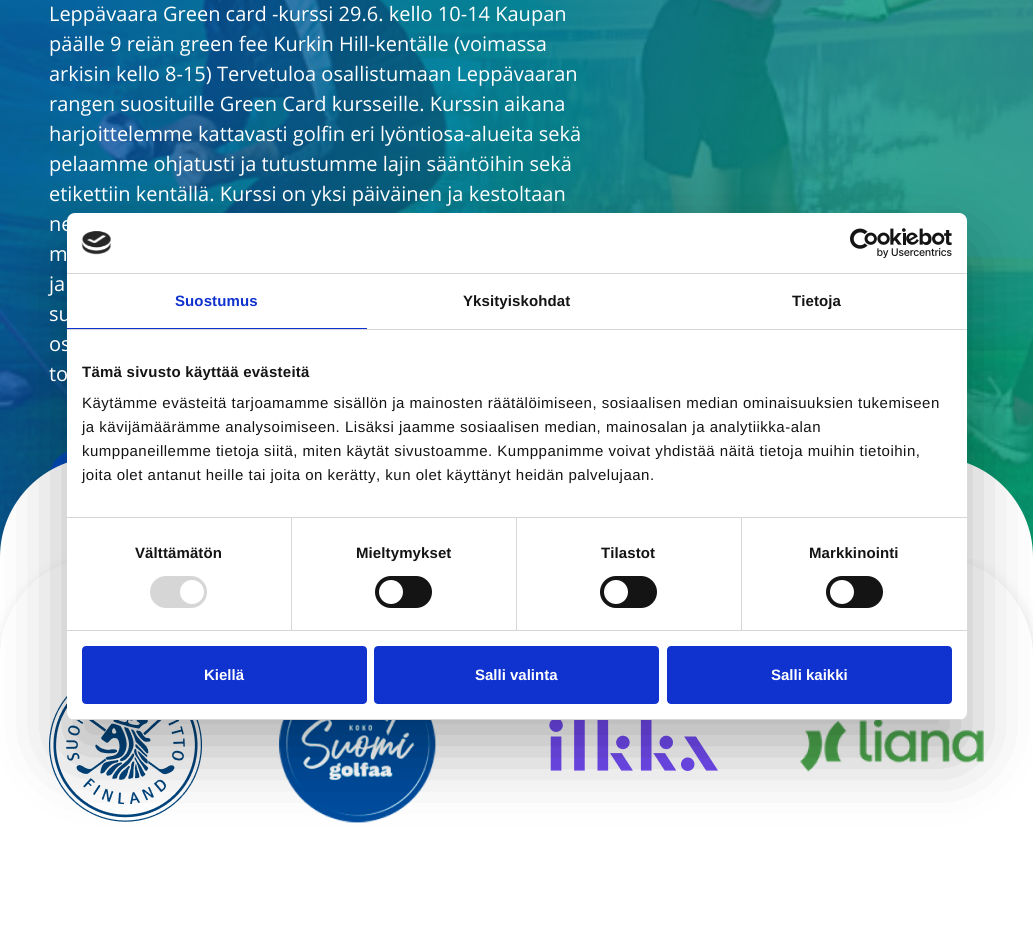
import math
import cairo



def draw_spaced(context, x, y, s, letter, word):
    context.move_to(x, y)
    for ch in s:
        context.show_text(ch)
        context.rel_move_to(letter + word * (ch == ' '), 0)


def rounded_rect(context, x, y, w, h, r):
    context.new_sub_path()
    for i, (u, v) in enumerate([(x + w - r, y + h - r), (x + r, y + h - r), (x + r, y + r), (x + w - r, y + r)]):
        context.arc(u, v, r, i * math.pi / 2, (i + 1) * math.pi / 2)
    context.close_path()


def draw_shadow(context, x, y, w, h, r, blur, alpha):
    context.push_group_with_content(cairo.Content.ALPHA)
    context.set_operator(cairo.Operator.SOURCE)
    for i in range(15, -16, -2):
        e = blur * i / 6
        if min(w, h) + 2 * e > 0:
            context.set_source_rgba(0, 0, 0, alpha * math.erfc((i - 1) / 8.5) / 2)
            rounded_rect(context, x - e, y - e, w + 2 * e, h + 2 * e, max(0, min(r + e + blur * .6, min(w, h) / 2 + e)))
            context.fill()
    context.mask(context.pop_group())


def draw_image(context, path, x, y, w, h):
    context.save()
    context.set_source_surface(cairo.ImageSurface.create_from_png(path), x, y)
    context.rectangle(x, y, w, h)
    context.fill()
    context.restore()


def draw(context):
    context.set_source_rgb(1, 1, 1)
    context.paint()
    context.save()
    context.set_fill_rule(cairo.FillRule.EVEN_ODD)
    context.new_path()
    context.move_to(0, 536)
    context.line_to(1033, 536)
    context.line_to(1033, 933)
    context.line_to(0, 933)
    context.close_path()
    context.move_to(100, 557)
    context.line_to(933, 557)
    context.curve_to(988, 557, 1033, 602, 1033, 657)
    context.line_to(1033, 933)
    context.line_to(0, 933)
    context.line_to(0, 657)
    context.curve_to(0, 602, 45, 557, 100, 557)
    context.close_path()
    context.clip()
    context.set_source_rgb(53 / 255, 53 / 255, 53 / 255)
    draw_shadow(context, 2, 561, 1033, 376, 100, 8, 0.15)
    context.restore()
    draw_image(context, "images/1.png", 0, 0, 1033, 557)
    context.set_source_rgb(0, 74 / 255, 183 / 255)
    rounded_rect(context, 50.5, 450.5, 426, 57, 28.5)
    context.fill_preserve()
    context.set_line_width(3)
    context.stroke()
    context.set_source_rgb(1, 1, 1)
    context.new_path()
    context.move_to(100, 457)
    context.line_to(933, 457)
    context.curve_to(988, 457, 1033, 502, 1033, 557)
    context.line_to(1033, 559)
    context.line_to(0, 559)
    context.line_to(0, 557)
    context.curve_to(0, 502, 45, 457, 100, 457)
    context.close_path()
    context.fill()
    draw_image(context, "images/4.png", 49, 696, 153, 126)
    draw_image(context, "images/5.png", 279, 720, 157, 103)
    draw_image(context, "images/6.png", 549, 720, 169, 51)
    draw_image(context, "images/7.png", 800, 720, 184, 52)
    context.set_source_rgb(0, 0, 0)
    draw_shadow(context, 67, 245, 900, 507, 8, 34, 0.3)
    context.set_source_rgb(1, 1, 1)
    rounded_rect(context, 67, 213, 900, 507, 8)
    context.fill()
    context.set_source_rgb(214 / 255, 214 / 255, 214 / 255)
    context.rectangle(67, 273, 900, 1)
    context.fill()
    draw_image(context, "images/2.png", 81, 231, 30, 24)
    draw_image(context, "images/3.png", 850, 228, 102, 30)
    context.rectangle(67, 329, 900, 1)
    context.fill()
    context.set_source_rgb(16 / 255, 50 / 255, 207 / 255)
    context.rectangle(67, 328, 300, 1)
    context.fill()
    context.set_source_rgb(214 / 255, 214 / 255, 214 / 255)
    context.rectangle(67, 517, 900, 1)
    context.fill()
    context.rectangle(67, 630, 900, 1)
    context.fill()
    context.rectangle(291, 518, 1, 112)
    context.fill()
    rounded_rect(context, 150, 576, 57, 32, 16)
    context.fill()
    context.set_source_rgb(1, 1, 1)
    context.arc(192, 592, 12, 0, 2 * math.pi)
    context.fill()
    context.set_source_rgb(214 / 255, 214 / 255, 214 / 255)
    context.rectangle(516, 518, 1, 112)
    context.fill()
    context.set_source_rgb(20 / 255, 20 / 255, 20 / 255)
    rounded_rect(context, 375, 576, 57, 32, 16)
    context.fill()
    context.set_source_rgb(1, 1, 1)
    context.arc(391, 592, 12, 0, 2 * math.pi)
    context.fill()
    context.set_source_rgb(214 / 255, 214 / 255, 214 / 255)
    context.rectangle(741, 518, 1, 112)
    context.fill()
    context.set_source_rgb(20 / 255, 20 / 255, 20 / 255)
    rounded_rect(context, 600, 576, 57, 32, 16)
    context.fill()
    context.set_source_rgb(1, 1, 1)
    context.arc(616, 592, 12, 0, 2 * math.pi)
    context.fill()
    context.set_source_rgb(20 / 255, 20 / 255, 20 / 255)
    rounded_rect(context, 826, 576, 57, 32, 16)
    context.fill()
    context.set_source_rgb(1, 1, 1)
    context.arc(842, 592, 12, 0, 2 * math.pi)
    context.fill()
    context.save()
    rounded_rect(context, 67, 213, 900, 507, 8)
    context.clip()
    context.set_source_rgb(214 / 255, 214 / 255, 214 / 255)
    context.rectangle(67, 719, 900, 1)
    context.fill()
    context.restore()
    context.set_source_rgb(16 / 255, 50 / 255, 207 / 255)
    rounded_rect(context, 83, 647, 283, 56, 3)
    context.fill_preserve()
    context.set_line_width(2)
    context.stroke()
    rounded_rect(context, 375, 647, 283, 56, 3)
    context.fill_preserve()
    context.stroke()
    rounded_rect(context, 668, 647, 283, 56, 3)
    context.fill_preserve()
    context.stroke()
    context.select_font_face("Open Sans")
    context.set_font_size(20)
    context.set_source_rgb(1, 1, 1)
    context.move_to(49, 21)
    context.show_text("Leppävaara Green card -kurssi 29.6. kello 10-14 Kaupan")
    context.move_to(49, 51)
    context.show_text("päälle 9 reiän green fee Kurkin Hill-kentälle (voimassa")
    context.move_to(49, 81)
    context.show_text("arkisin kello 8-15) Tervetuloa osallistumaan Leppävaaran")
    context.move_to(49, 111)
    context.show_text("rangen suosituille Green Card kursseille. Kurssin aikana")
    context.move_to(49, 141)
    context.show_text("harjoittelemme kattavasti golfin eri lyöntiosa-alueita sekä")
    context.move_to(49, 171)
    context.show_text("pelaamme ohjatusti ja tutustumme lajin sääntöihin sekä")
    context.move_to(49, 201)
    context.show_text("etikettiin kentällä. Kurssi on yksi päiväinen ja kestoltaan")
    context.move_to(49, 231)
    context.show_text("ne")
    context.move_to(49, 261)
    context.show_text("m")
    context.move_to(49, 291)
    context.show_text("ja")
    context.move_to(49, 321)
    context.show_text("su")
    context.move_to(49, 351)
    context.show_text("os")
    context.move_to(49, 381)
    context.show_text("to")
    context.select_font_face("Liberation Sans", cairo.FontSlant.NORMAL, cairo.FontWeight.BOLD)
    context.set_font_size(15)
    context.set_source_rgb(16 / 255, 50 / 255, 207 / 255)
    draw_spaced(context, 175, 306, "Suostumus", 0.1, 0)
    context.set_source_rgb(20 / 255, 20 / 255, 20 / 255)
    draw_spaced(context, 463, 306, "Yksityiskohdat", 0.1, 0)
    draw_spaced(context, 792, 306, "Tietoja", 0.1, 0)
    draw_spaced(context, 82, 377, "Tämä sivusto käyttää evästeitä", 0.25, 0)
    context.select_font_face("Liberation Sans")
    draw_spaced(context, 82, 408, "Käytämme evästeitä tarjoamamme sisällön ja mainosten räätälöimiseen, sosiaalisen median ominaisuuksien tukemiseen", 0.5, 0)
    draw_spaced(context, 82, 432, "ja kävijämäärämme analysoimiseen. Lisäksi jaamme sosiaalisen median, mainosalan ja analytiikka-alan", 0.5, 0)
    draw_spaced(context, 82, 456, "kumppaneillemme tietoja siitä, miten käytät sivustoamme. Kumppanimme voivat yhdistää näitä tietoja muihin tietoihin,", 0.5, 0)
    draw_spaced(context, 82, 480, "joita olet antanut heille tai joita on kerätty, kun olet käyttänyt heidän palvelujaan.", 0.5, 0)
    context.select_font_face("Liberation Sans", cairo.FontSlant.NORMAL, cairo.FontWeight.BOLD)
    draw_spaced(context, 135, 558, "Välttämätön", 0.1, 0)
    draw_spaced(context, 356, 558, "Mieltymykset", 0.1, 0)
    draw_spaced(context, 601, 558, "Tilastot", 0.1, 0)
    draw_spaced(context, 809, 558, "Markkinointi", 0.1, 0)
    context.set_source_rgb(1, 1, 1)
    context.move_to(204, 680)
    context.show_text("Kiellä")
    context.move_to(475, 680)
    context.show_text("Salli valinta")
    context.move_to(771, 680)
    context.show_text("Salli kaikki")


surface = cairo.ImageSurface(cairo.Format.RGB24, 1033, 933)
context = cairo.Context(surface)
options = cairo.FontOptions()
options.set_hint_metrics(cairo.HintMetrics.OFF)
options.set_hint_style(cairo.HintStyle.NONE)
context.set_font_options(options)
context.set_miter_limit(4)
draw(context)
surface.write_to_png("out.png")
